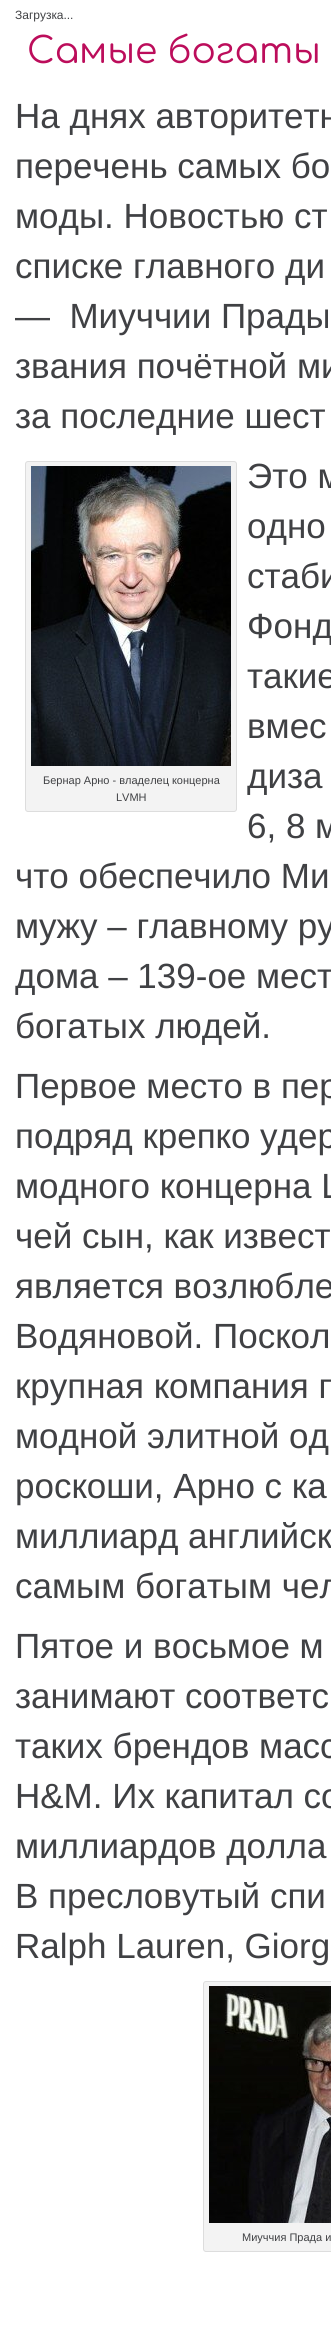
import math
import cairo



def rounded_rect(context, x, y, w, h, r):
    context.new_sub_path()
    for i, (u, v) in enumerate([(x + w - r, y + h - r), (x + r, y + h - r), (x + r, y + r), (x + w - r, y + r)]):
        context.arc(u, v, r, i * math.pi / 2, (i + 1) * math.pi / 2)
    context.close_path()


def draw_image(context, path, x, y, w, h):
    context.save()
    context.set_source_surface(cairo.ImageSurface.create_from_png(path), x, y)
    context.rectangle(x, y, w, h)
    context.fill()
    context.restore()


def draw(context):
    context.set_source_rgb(1, 1, 1)
    context.paint()
    context.set_source_rgb(243 / 255, 243 / 255, 243 / 255)
    rounded_rect(context, 25.5, 461.5, 211, 350, 2.5)
    context.fill_preserve()
    context.set_source_rgb(221 / 255, 221 / 255, 221 / 255)
    context.set_line_width(1)
    context.stroke()
    draw_image(context, "images/1.png", 31, 466, 200, 300)
    context.set_source_rgb(243 / 255, 243 / 255, 243 / 255)
    rounded_rect(context, 203.5, 1981.5, 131, 270, 2.5)
    context.fill_preserve()
    context.set_source_rgb(221 / 255, 221 / 255, 221 / 255)
    context.stroke()
    draw_image(context, "images/2.png", 209, 1986, 122, 237)
    context.select_font_face("Liberation Sans")
    context.set_font_size(12)
    context.set_source_rgb(64 / 255, 65 / 255, 68 / 255)
    context.move_to(15, 19)
    context.show_text("Загрузка...")
    context.select_font_face("Comfortaa")
    context.set_font_size(36)
    context.set_source_rgb(188 / 255, 13 / 255, 91 / 255)
    context.move_to(27, 63)
    context.show_text("Самые богаты")
    context.select_font_face("Liberation Sans")
    context.set_font_size(35)
    context.set_source_rgb(64 / 255, 65 / 255, 68 / 255)
    context.move_to(15, 128)
    context.show_text("На днях авторитетн")
    context.move_to(15, 178)
    context.show_text("перечень самых бо")
    context.move_to(15, 228)
    context.show_text("моды. Новостью ст")
    context.move_to(15, 278)
    context.show_text("списке главного ди")
    context.move_to(15, 328)
    context.show_text("—  Миуччии Прады")
    context.move_to(15, 378)
    context.show_text("звания почётной ми")
    context.move_to(15, 428)
    context.show_text("за последние шест")
    context.move_to(247, 488)
    context.show_text("Это м")
    context.move_to(247, 538)
    context.show_text("одно")
    context.move_to(247, 588)
    context.show_text("стаби")
    context.move_to(247, 638)
    context.show_text("Фонд")
    context.move_to(247, 688)
    context.show_text("такие")
    context.move_to(247, 738)
    context.show_text("вмес")
    context.move_to(247, 788)
    context.show_text("диза")
    context.move_to(247, 838)
    context.show_text("6, 8 м")
    context.move_to(15, 888)
    context.show_text("что обеспечило Ми")
    context.move_to(15, 938)
    context.show_text("мужу – главному ру")
    context.move_to(15, 988)
    context.show_text("дома – 139-ое мест")
    context.move_to(15, 1038)
    context.show_text("богатых людей.")
    context.set_font_size(11)
    context.move_to(43, 784)
    context.show_text("Бернар Арно - владелец концерна")
    context.move_to(116, 801)
    context.show_text("LVMH")
    context.set_font_size(35)
    context.move_to(15, 1098)
    context.show_text("Первое место в пер")
    context.move_to(15, 1148)
    context.show_text("подряд крепко удер")
    context.move_to(15, 1198)
    context.show_text("модного концерна L")
    context.move_to(15, 1248)
    context.show_text("чей сын, как извест")
    context.move_to(15, 1298)
    context.show_text("является возлюбле")
    context.move_to(15, 1348)
    context.show_text("Водяновой. Поскол")
    context.move_to(15, 1398)
    context.show_text("крупная компания п")
    context.move_to(15, 1448)
    context.show_text("модной элитной од")
    context.move_to(15, 1498)
    context.show_text("роскоши, Арно с ка")
    context.move_to(15, 1548)
    context.show_text("миллиард английск")
    context.move_to(15, 1598)
    context.show_text("самым богатым чел")
    context.move_to(15, 1658)
    context.show_text("Пятое и восьмое м")
    context.move_to(15, 1708)
    context.show_text("занимают соответс")
    context.move_to(15, 1758)
    context.show_text("таких брендов масс")
    context.move_to(15, 1808)
    context.show_text("H&M. Их капитал со")
    context.move_to(15, 1858)
    context.show_text("миллиардов долла")
    context.move_to(15, 1908)
    context.show_text("В пресловутый спи")
    context.move_to(15, 1958)
    context.show_text("Ralph Lauren, Giorg")
    context.set_font_size(11)
    context.move_to(242, 2241)
    context.show_text("Миуччия Прада и")


surface = cairo.ImageSurface(cairo.Format.RGB24, 331, 2333)
context = cairo.Context(surface)
options = cairo.FontOptions()
options.set_hint_metrics(cairo.HintMetrics.OFF)
options.set_hint_style(cairo.HintStyle.NONE)
context.set_font_options(options)
context.set_miter_limit(4)
draw(context)
surface.write_to_png("out.png")
